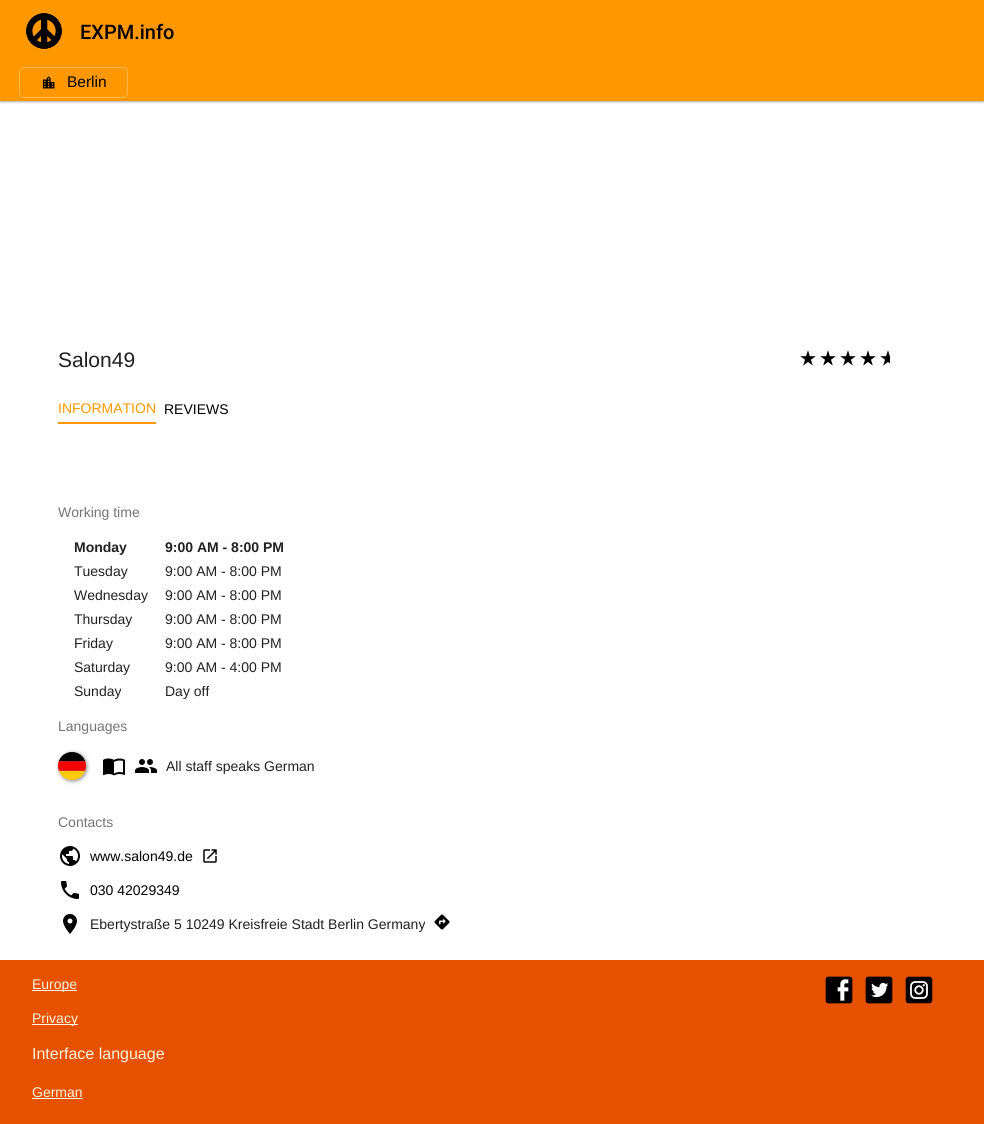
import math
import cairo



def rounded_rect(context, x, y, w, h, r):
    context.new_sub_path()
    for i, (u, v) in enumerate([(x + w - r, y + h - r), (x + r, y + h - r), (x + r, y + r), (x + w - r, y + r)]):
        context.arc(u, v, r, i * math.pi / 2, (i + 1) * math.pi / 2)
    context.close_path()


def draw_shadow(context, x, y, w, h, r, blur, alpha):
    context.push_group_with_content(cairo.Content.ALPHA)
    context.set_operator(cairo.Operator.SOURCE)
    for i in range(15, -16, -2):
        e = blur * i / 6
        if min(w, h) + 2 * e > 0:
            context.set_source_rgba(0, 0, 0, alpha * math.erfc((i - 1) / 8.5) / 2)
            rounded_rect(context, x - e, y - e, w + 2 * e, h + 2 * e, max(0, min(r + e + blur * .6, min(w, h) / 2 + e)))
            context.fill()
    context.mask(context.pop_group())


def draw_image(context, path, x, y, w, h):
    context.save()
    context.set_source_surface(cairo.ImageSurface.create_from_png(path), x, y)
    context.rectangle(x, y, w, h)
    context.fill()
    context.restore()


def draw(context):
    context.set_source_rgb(1, 1, 1)
    context.paint()
    context.set_source_rgb(0, 0, 0)
    draw_shadow(context, 0, 1, 984, 101, 0, 1, 0.24)
    draw_shadow(context, 0, 1, 984, 101, 0, 1.5, 0.12)
    context.set_source_rgb(1, 152 / 255, 0)
    context.rectangle(0, 0, 984, 101)
    context.fill()
    draw_image(context, "images/1.png", 26, 13, 36, 36)
    rounded_rect(context, 19.5, 67.5, 108, 30, 4.5)
    context.set_source_rgb(1, 183 / 255, 77 / 255)
    context.set_line_width(1)
    context.stroke()
    draw_image(context, "images/2.png", 42, 76, 13, 13)
    draw_image(context, "images/3.png", 800, 350, 16, 16)
    draw_image(context, "images/3.png", 820, 350, 16, 16)
    draw_image(context, "images/3.png", 840, 350, 16, 16)
    draw_image(context, "images/3.png", 860, 350, 16, 16)
    draw_image(context, "images/4.png", 880, 350, 10, 16)
    context.set_source_rgb(1, 152 / 255, 0)
    context.rectangle(58, 422, 98, 2)
    context.fill()
    draw_image(context, "images/5.png", 55, 749, 36, 36)
    draw_image(context, "images/6.png", 103, 758, 22, 18)
    draw_image(context, "images/7.png", 135, 759, 22, 14)
    draw_image(context, "images/8.png", 60, 846, 20, 20)
    draw_image(context, "images/9.png", 203, 849, 14, 14)
    draw_image(context, "images/10.png", 61, 881, 18, 18)
    draw_image(context, "images/11.png", 63, 914, 14, 20)
    draw_image(context, "images/12.png", 434, 914, 16, 16)
    context.set_source_rgb(230 / 255, 81 / 255, 0)
    context.rectangle(0, 960, 984, 164)
    context.fill()
    context.set_source_rgb(1, 243 / 255, 224 / 255)
    context.rectangle(32, 990, 45, 1)
    context.fill()
    context.rectangle(32, 1024, 46, 1)
    context.fill()
    context.rectangle(32, 1098, 51, 1)
    context.fill()
    draw_image(context, "images/13.png", 825, 976, 28, 28)
    draw_image(context, "images/14.png", 865, 976, 28, 28)
    draw_image(context, "images/15.png", 905, 976, 28, 28)
    context.select_font_face("Roboto Medium")
    context.set_font_size(20)
    context.set_source_rgb(0, 0, 0)
    context.move_to(80, 39)
    context.show_text("EXPM.info")
    context.select_font_face("Liberation Sans")
    context.set_font_size(15.5)
    context.move_to(67, 87)
    context.show_text("Berlin")
    context.set_font_size(21)
    context.set_source_rgb(33 / 255, 33 / 255, 33 / 255)
    context.move_to(58, 367)
    context.show_text("Salon49")
    context.set_font_size(14)
    context.set_source_rgb(1, 152 / 255, 0)
    context.move_to(58, 413)
    context.show_text("INFORMATION")
    context.set_source_rgb(0, 0, 0)
    context.move_to(164, 414)
    context.show_text("REVIEWS")
    context.set_source_rgb(117 / 255, 117 / 255, 117 / 255)
    context.move_to(58, 517)
    context.show_text("Working time")
    context.select_font_face("Liberation Sans", cairo.FontSlant.NORMAL, cairo.FontWeight.BOLD)
    context.set_source_rgb(33 / 255, 33 / 255, 33 / 255)
    context.move_to(74, 552)
    context.show_text("Monday")
    context.move_to(165, 552)
    context.show_text("9:00 AM - 8:00 PM")
    context.select_font_face("Liberation Sans")
    context.move_to(74, 576)
    context.show_text("Tuesday")
    context.move_to(165, 576)
    context.show_text("9:00 AM - 8:00 PM")
    context.move_to(74, 600)
    context.show_text("Wednesday")
    context.move_to(165, 600)
    context.show_text("9:00 AM - 8:00 PM")
    context.move_to(74, 624)
    context.show_text("Thursday")
    context.move_to(165, 624)
    context.show_text("9:00 AM - 8:00 PM")
    context.move_to(74, 648)
    context.show_text("Friday")
    context.move_to(165, 648)
    context.show_text("9:00 AM - 8:00 PM")
    context.move_to(74, 672)
    context.show_text("Saturday")
    context.move_to(165, 672)
    context.show_text("9:00 AM - 4:00 PM")
    context.move_to(74, 696)
    context.show_text("Sunday")
    context.move_to(165, 696)
    context.show_text("Day off")
    context.set_source_rgb(117 / 255, 117 / 255, 117 / 255)
    context.move_to(58, 731)
    context.show_text("Languages")
    context.set_source_rgb(33 / 255, 33 / 255, 33 / 255)
    context.move_to(166, 771)
    context.show_text("All staff speaks German")
    context.set_source_rgb(117 / 255, 117 / 255, 117 / 255)
    context.move_to(58, 827)
    context.show_text("Contacts")
    context.set_source_rgb(0, 0, 0)
    context.move_to(90, 861)
    context.show_text("www.salon49.de")
    context.move_to(90, 895)
    context.show_text("030 42029349")
    context.set_source_rgb(33 / 255, 33 / 255, 33 / 255)
    context.move_to(90, 929)
    context.show_text("Ebertystraße 5 10249 Kreisfreie Stadt Berlin Germany")
    context.set_source_rgb(1, 243 / 255, 224 / 255)
    context.move_to(32, 989)
    context.show_text("Europe")
    context.move_to(32, 1023)
    context.show_text("Privacy")
    context.set_font_size(16)
    context.move_to(32, 1059)
    context.show_text("Interface language")
    context.set_font_size(14)
    context.move_to(32, 1097)
    context.show_text("German")


surface = cairo.ImageSurface(cairo.Format.RGB24, 984, 1124)
context = cairo.Context(surface)
options = cairo.FontOptions()
options.set_hint_metrics(cairo.HintMetrics.OFF)
options.set_hint_style(cairo.HintStyle.NONE)
context.set_font_options(options)
context.set_miter_limit(4)
draw(context)
surface.write_to_png("out.png")
